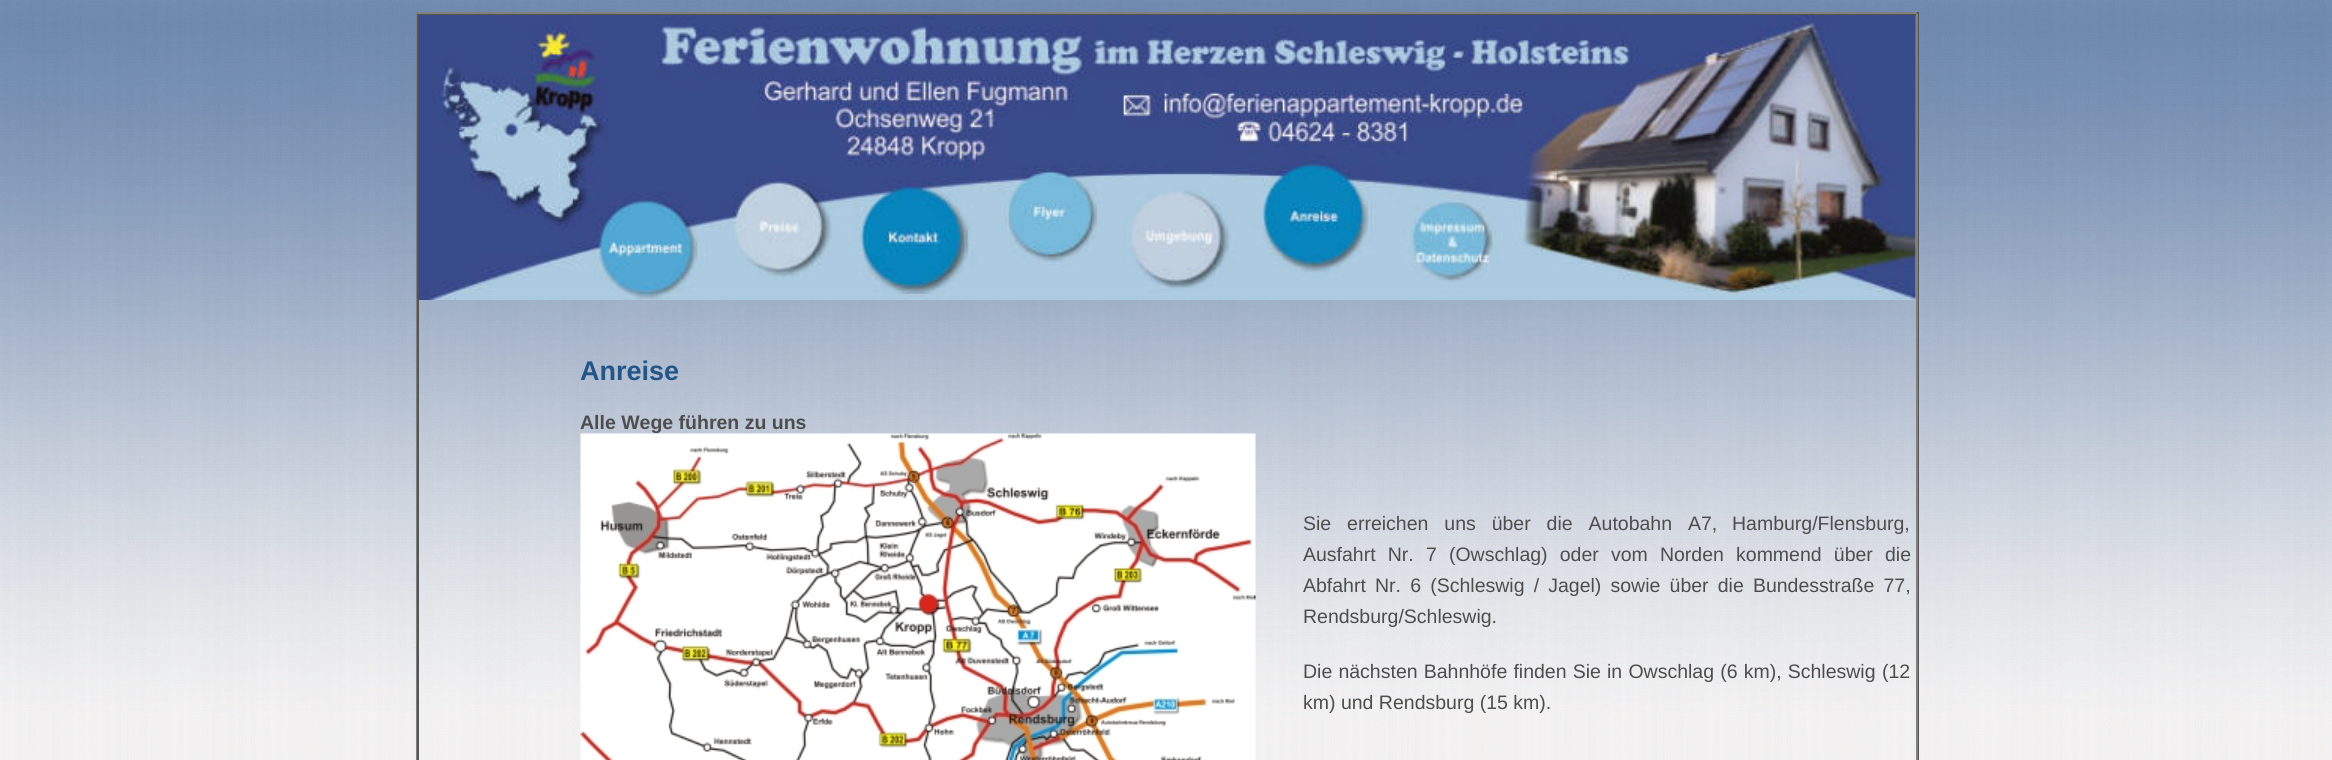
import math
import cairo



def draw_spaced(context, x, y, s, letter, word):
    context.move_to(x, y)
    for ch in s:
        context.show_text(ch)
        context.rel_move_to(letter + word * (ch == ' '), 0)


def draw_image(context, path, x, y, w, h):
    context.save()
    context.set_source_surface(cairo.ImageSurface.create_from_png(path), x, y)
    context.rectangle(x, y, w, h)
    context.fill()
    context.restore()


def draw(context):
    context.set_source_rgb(1, 1, 1)
    context.paint()
    draw_image(context, "images/1.png", 0, 0, 2332, 760)
    context.set_source_rgb(128 / 255, 128 / 255, 128 / 255)
    context.rectangle(416, 12, 1503, 2)
    context.fill()
    context.set_source_rgb(85 / 255, 85 / 255, 85 / 255)
    context.rectangle(1917, 12, 2, 748)
    context.fill()
    context.set_source_rgb(128 / 255, 128 / 255, 128 / 255)
    context.rectangle(416, 12, 2, 748)
    context.fill()
    context.set_source_rgb(85 / 255, 85 / 255, 85 / 255)
    context.rectangle(417, 14, 1500, 2)
    context.fill()
    context.set_source_rgb(128 / 255, 128 / 255, 128 / 255)
    context.rectangle(1916, 14, 2, 746)
    context.fill()
    context.set_source_rgb(85 / 255, 85 / 255, 85 / 255)
    context.rectangle(417, 14, 2, 746)
    context.fill()
    draw_image(context, "images/2.png", 418, 15, 1498, 285)
    context.select_font_face("Liberation Sans", cairo.FontSlant.NORMAL, cairo.FontWeight.BOLD)
    context.set_font_size(27)
    context.set_source_rgb(35 / 255, 85 / 255, 135 / 255)
    context.move_to(580, 380)
    context.show_text("Anreise")
    context.set_font_size(19.5)
    context.set_source_rgb(77 / 255, 77 / 255, 77 / 255)
    context.move_to(580, 429)
    context.show_text("Alle Wege führen zu uns")
    draw_image(context, "images/3.png", 580, 433, 676, 327)
    context.select_font_face("Liberation Sans")
    draw_spaced(context, 1303, 530, "Sie erreichen uns über die Autobahn A7,", 0, 10.5)
    context.move_to(1732, 530)
    context.show_text("Hamburg/Flensburg,")
    draw_spaced(context, 1303, 561, "Ausfahrt Nr. 7 (Owschlag) oder vom Norden kommend über die", 0, 6.75)
    draw_spaced(context, 1303, 592, "Abfahrt Nr. 6 (Schleswig / Jagel) sowie über die Bundesstraße 77,", 0, 3.75)
    context.move_to(1303, 623)
    context.show_text("Rendsburg/Schleswig.")
    draw_spaced(context, 1303, 678, "Die nächsten Bahnhöfe finden Sie in Owschlag (6 km), Schleswig", 0, 0.75)
    context.move_to(1882, 678)
    context.show_text("(12")
    context.move_to(1303, 709)
    context.show_text("km) und Rendsburg (15 km).")


surface = cairo.ImageSurface(cairo.Format.RGB24, 2332, 760)
context = cairo.Context(surface)
options = cairo.FontOptions()
options.set_hint_metrics(cairo.HintMetrics.OFF)
options.set_hint_style(cairo.HintStyle.NONE)
context.set_font_options(options)
context.set_miter_limit(4)
draw(context)
surface.write_to_png("out.png")
